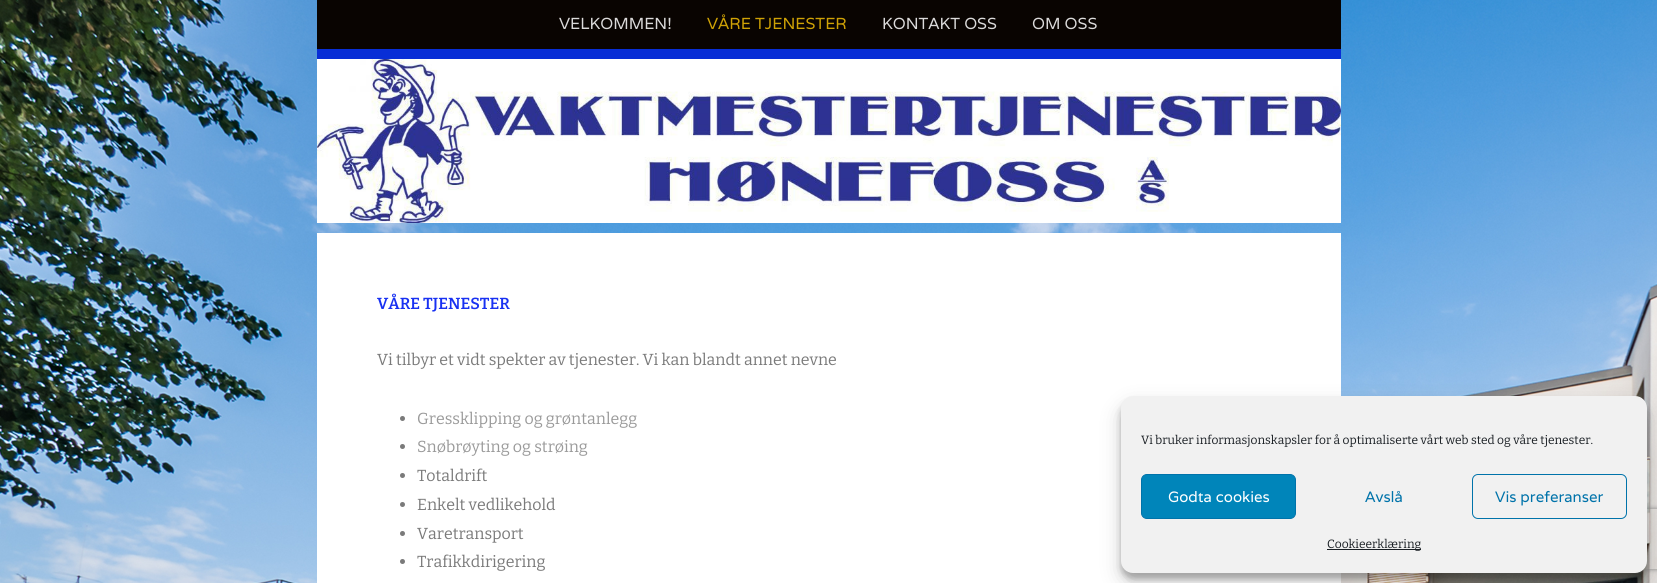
import math
import cairo



def rounded_rect(context, x, y, w, h, r):
    context.new_sub_path()
    for i, (u, v) in enumerate([(x + w - r, y + h - r), (x + r, y + h - r), (x + r, y + r), (x + w - r, y + r)]):
        context.arc(u, v, r, i * math.pi / 2, (i + 1) * math.pi / 2)
    context.close_path()


def draw_shadow(context, x, y, w, h, r, blur, alpha):
    context.push_group_with_content(cairo.Content.ALPHA)
    context.set_operator(cairo.Operator.SOURCE)
    for i in range(15, -16, -2):
        e = blur * i / 6
        if min(w, h) + 2 * e > 0:
            context.set_source_rgba(0, 0, 0, alpha * math.erfc((i - 1) / 8.5) / 2)
            rounded_rect(context, x - e, y - e, w + 2 * e, h + 2 * e, max(0, min(r + e + blur * .6, min(w, h) / 2 + e)))
            context.fill()
    context.mask(context.pop_group())


def draw_image(context, path, x, y, w, h):
    context.save()
    context.set_source_surface(cairo.ImageSurface.create_from_png(path), x, y)
    context.rectangle(x, y, w, h)
    context.fill()
    context.restore()


def draw(context):
    context.set_source_rgb(1, 1, 1)
    context.paint()
    draw_image(context, "images/1.png", 0, 0, 1657, 583)
    context.set_source_rgb(8 / 255, 46 / 255, 214 / 255)
    context.rectangle(317, 49, 1024, 10)
    context.fill()
    context.set_source_rgb(9 / 255, 4 / 255, 1 / 255)
    context.rectangle(317, 0, 1024, 49)
    context.fill()
    draw_image(context, "images/2.png", 317, 59, 1024, 164)
    context.set_source_rgb(1, 1, 1)
    context.rectangle(317, 233, 1024, 350)
    context.fill()
    context.set_source_rgb(122 / 255, 122 / 255, 122 / 255)
    context.arc(402.5, 418.5, 2.5, 0, 2 * math.pi)
    context.fill()
    context.arc(402.5, 446.5, 2.5, 0, 2 * math.pi)
    context.fill()
    context.arc(402.5, 475.5, 2.5, 0, 2 * math.pi)
    context.fill()
    context.arc(402.5, 504.5, 2.5, 0, 2 * math.pi)
    context.fill()
    context.arc(402.5, 533.5, 2.5, 0, 2 * math.pi)
    context.fill()
    context.arc(402.5, 561.5, 2.5, 0, 2 * math.pi)
    context.fill()
    context.set_source_rgb(0, 0, 0)
    draw_shadow(context, 1121, 402, 526, 177, 12, 3, 0.23)
    draw_shadow(context, 1121, 406, 526, 177, 12, 10, 0.19)
    context.save()
    context.set_fill_rule(cairo.FillRule.EVEN_ODD)
    context.new_path()
    context.move_to(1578, 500)
    context.line_to(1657, 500)
    context.line_to(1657, 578)
    context.line_to(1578, 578)
    context.close_path()
    context.move_to(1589, 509)
    context.line_to(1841, 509)
    context.curve_to(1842, 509, 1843, 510, 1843, 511)
    context.line_to(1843, 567)
    context.curve_to(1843, 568, 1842, 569, 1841, 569)
    context.line_to(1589, 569)
    context.curve_to(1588, 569, 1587, 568, 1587, 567)
    context.line_to(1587, 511)
    context.curve_to(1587, 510, 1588, 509, 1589, 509)
    context.close_path()
    context.clip()
    context.set_source_rgb(128 / 255, 128 / 255, 128 / 255)
    draw_shadow(context, 1587, 509, 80, 60, 2, 2.5, 1)
    context.restore()
    context.set_source_rgb(241 / 255, 241 / 255, 241 / 255)
    rounded_rect(context, 1121, 396, 526, 177, 12)
    context.fill()
    context.set_source_rgb(0, 133 / 255, 186 / 255)
    rounded_rect(context, 1141.5, 474.5, 154, 44, 5.5)
    context.fill_preserve()
    context.set_source_rgb(0, 115 / 255, 170 / 255)
    context.set_line_width(1)
    context.stroke()
    rounded_rect(context, 1472.5, 474.5, 154, 44, 5.5)
    context.stroke()
    context.set_source_rgb(25 / 255, 30 / 255, 35 / 255)
    context.rectangle(1327, 549, 94, 1)
    context.fill()
    context.select_font_face("Varela")
    context.set_font_size(16)
    context.set_source_rgb(219 / 255, 218 / 255, 218 / 255)
    context.move_to(559, 29)
    context.show_text("VELKOMMEN!")
    context.set_source_rgb(207 / 255, 162 / 255, 5 / 255)
    context.move_to(707, 29)
    context.show_text("VÅRE TJENESTER")
    context.set_source_rgb(219 / 255, 218 / 255, 218 / 255)
    context.move_to(882, 29)
    context.show_text("KONTAKT OSS")
    context.move_to(1032, 29)
    context.show_text("OM OSS")
    context.select_font_face("Bitter SemiBold")
    context.set_source_rgb(24 / 255, 49 / 255, 242 / 255)
    context.move_to(377, 309)
    context.show_text("VÅRE TJENESTER")
    context.select_font_face("Bitter")
    context.set_source_rgb(122 / 255, 122 / 255, 122 / 255)
    context.move_to(377, 365)
    context.show_text("Vi tilbyr et vidt spekter av tjenester. Vi kan blandt annet nevne")
    context.set_source_rgb(154 / 255, 154 / 255, 154 / 255)
    context.move_to(417, 424)
    context.show_text("Gressklipping og grøntanlegg")
    context.move_to(417, 452)
    context.show_text("Snøbrøyting og strøing")
    context.set_source_rgb(122 / 255, 122 / 255, 122 / 255)
    context.move_to(417, 481)
    context.show_text("Totaldrift")
    context.move_to(417, 510)
    context.show_text("Enkelt vedlikehold")
    context.move_to(417, 539)
    context.show_text("Varetransport")
    context.move_to(417, 567)
    context.show_text("Trafikkdirigering")
    context.set_font_size(12)
    context.set_source_rgb(25 / 255, 30 / 255, 35 / 255)
    context.move_to(1141, 444)
    context.show_text("Vi bruker informasjonskapsler for å optimaliserte vårt web sted og våre tjenester.")
    context.select_font_face("Varela")
    context.set_font_size(15)
    context.set_source_rgb(1, 1, 1)
    context.move_to(1168, 502)
    context.show_text("Godta cookies")
    context.set_source_rgb(0, 115 / 255, 170 / 255)
    context.move_to(1365, 502)
    context.show_text("Avslå")
    context.move_to(1495, 502)
    context.show_text("Vis preferanser")
    context.select_font_face("Bitter")
    context.set_font_size(12)
    context.set_source_rgb(25 / 255, 30 / 255, 35 / 255)
    context.move_to(1327, 548)
    context.show_text("Cookieerklæring")


surface = cairo.ImageSurface(cairo.Format.RGB24, 1657, 583)
context = cairo.Context(surface)
options = cairo.FontOptions()
options.set_hint_metrics(cairo.HintMetrics.OFF)
options.set_hint_style(cairo.HintStyle.NONE)
context.set_font_options(options)
context.set_miter_limit(4)
draw(context)
surface.write_to_png("out.png")
